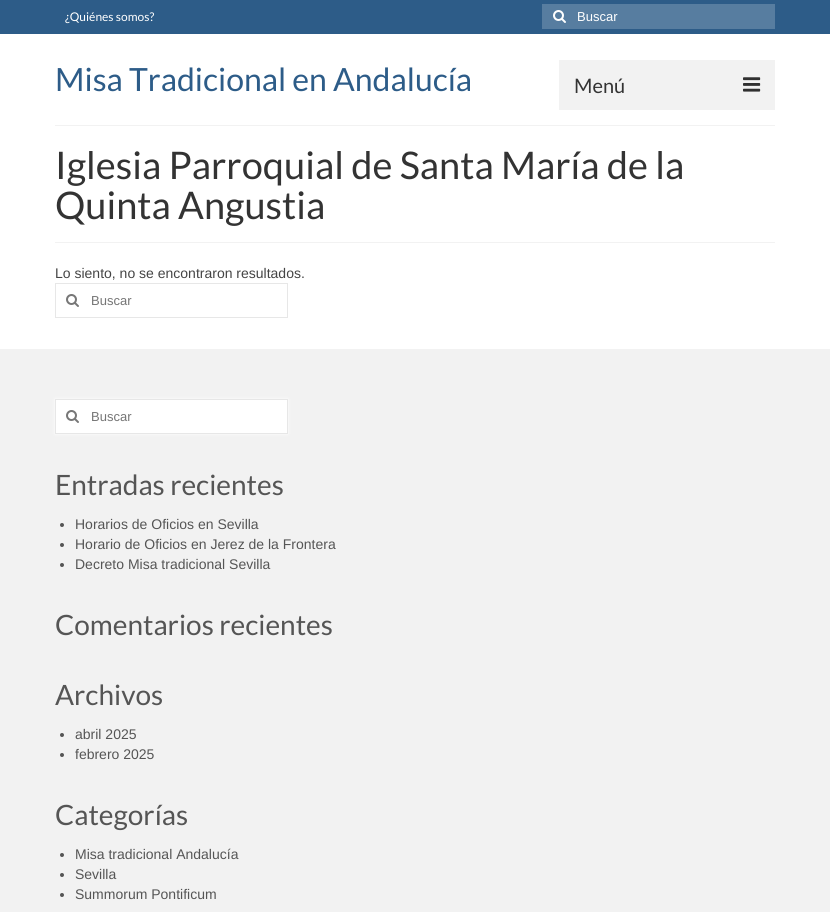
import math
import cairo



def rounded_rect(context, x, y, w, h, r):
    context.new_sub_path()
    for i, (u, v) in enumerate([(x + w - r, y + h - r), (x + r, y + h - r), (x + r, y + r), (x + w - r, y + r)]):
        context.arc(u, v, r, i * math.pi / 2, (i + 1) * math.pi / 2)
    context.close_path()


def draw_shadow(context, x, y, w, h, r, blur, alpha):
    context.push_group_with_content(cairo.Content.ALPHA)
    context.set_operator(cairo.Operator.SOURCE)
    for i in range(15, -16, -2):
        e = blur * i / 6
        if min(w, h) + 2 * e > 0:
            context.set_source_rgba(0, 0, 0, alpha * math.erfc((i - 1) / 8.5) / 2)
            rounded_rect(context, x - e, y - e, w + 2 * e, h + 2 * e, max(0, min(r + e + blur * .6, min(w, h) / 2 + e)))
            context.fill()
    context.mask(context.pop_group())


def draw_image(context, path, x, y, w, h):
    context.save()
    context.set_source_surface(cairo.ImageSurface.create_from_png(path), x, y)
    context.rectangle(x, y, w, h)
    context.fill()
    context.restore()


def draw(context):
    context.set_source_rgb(1, 1, 1)
    context.paint()
    context.set_source_rgb(45 / 255, 92 / 255, 136 / 255)
    context.rectangle(0, 0, 830, 34)
    context.fill()
    context.set_source_rgb(87 / 255, 125 / 255, 160 / 255)
    context.rectangle(542, 4, 233, 25)
    context.fill()
    draw_image(context, "images/1.png", 553, 10, 13, 13)
    context.set_source_rgb(242 / 255, 242 / 255, 242 / 255)
    context.rectangle(559, 60, 216, 50)
    context.fill()
    draw_image(context, "images/2.png", 743, 77, 18, 15)
    context.rectangle(55, 125, 720, 1)
    context.fill()
    context.rectangle(55, 242, 720, 1)
    context.fill()
    context.rectangle(55.5, 283.5, 232, 34)
    context.set_source_rgb(231 / 255, 231 / 255, 231 / 255)
    context.set_line_width(1)
    context.stroke()
    draw_image(context, "images/3.png", 66, 294, 13, 13)
    context.set_source_rgb(242 / 255, 242 / 255, 242 / 255)
    context.rectangle(0, 349, 830, 563)
    context.fill()
    context.set_source_rgb(1, 1, 1)
    draw_shadow(context, 55, 399, 233, 35, 0, 1.5, 1)
    context.set_source_rgb(1, 1, 1)
    context.rectangle(55.5, 399.5, 232, 34)
    context.fill_preserve()
    context.set_source_rgb(231 / 255, 231 / 255, 231 / 255)
    context.stroke()
    draw_image(context, "images/3.png", 66, 410, 13, 13)
    context.set_source_rgb(85 / 255, 85 / 255, 85 / 255)
    context.arc(62, 525, 2, 0, 2 * math.pi)
    context.fill()
    context.arc(62, 545, 2, 0, 2 * math.pi)
    context.fill()
    context.arc(62, 565, 2, 0, 2 * math.pi)
    context.fill()
    context.arc(62, 735, 2, 0, 2 * math.pi)
    context.fill()
    context.arc(62, 755, 2, 0, 2 * math.pi)
    context.fill()
    context.arc(62, 855, 2, 0, 2 * math.pi)
    context.fill()
    context.arc(62, 875, 2, 0, 2 * math.pi)
    context.fill()
    context.arc(62, 895, 2, 0, 2 * math.pi)
    context.fill()
    context.select_font_face("Lato")
    context.set_font_size(12)
    context.set_source_rgb(1, 1, 1)
    context.move_to(65, 21)
    context.show_text("¿Quiénes somos?")
    context.select_font_face("Liberation Sans")
    context.set_font_size(13)
    context.move_to(577, 21)
    context.show_text("Buscar")
    context.select_font_face("Lato")
    context.set_font_size(32)
    context.set_source_rgb(45 / 255, 92 / 255, 136 / 255)
    context.move_to(55, 91)
    context.show_text("Misa Tradicional en Andalucía")
    context.set_font_size(20)
    context.set_source_rgb(51 / 255, 51 / 255, 51 / 255)
    context.move_to(574, 93)
    context.show_text("Menú")
    context.set_font_size(38)
    context.move_to(55, 179)
    context.show_text("Iglesia Parroquial de Santa María de la")
    context.move_to(55, 219)
    context.show_text("Quinta Angustia")
    context.select_font_face("Liberation Sans")
    context.set_font_size(14)
    context.set_source_rgb(68 / 255, 68 / 255, 68 / 255)
    context.move_to(55, 278)
    context.show_text("Lo siento, no se encontraron resultados.")
    context.set_font_size(13)
    context.set_source_rgb(117 / 255, 117 / 255, 117 / 255)
    context.move_to(91, 305)
    context.show_text("Buscar")
    context.move_to(91, 421)
    context.show_text("Buscar")
    context.select_font_face("Lato")
    context.set_font_size(28)
    context.set_source_rgb(85 / 255, 85 / 255, 85 / 255)
    context.move_to(55, 495)
    context.show_text("Entradas recientes")
    context.select_font_face("Liberation Sans")
    context.set_font_size(14)
    context.move_to(75, 529)
    context.show_text("Horarios de Oficios en Sevilla")
    context.move_to(75, 549)
    context.show_text("Horario de Oficios en Jerez de la Frontera")
    context.move_to(75, 569)
    context.show_text("Decreto Misa tradicional Sevilla")
    context.select_font_face("Lato")
    context.set_font_size(28)
    context.move_to(55, 635)
    context.show_text("Comentarios recientes")
    context.move_to(55, 705)
    context.show_text("Archivos")
    context.select_font_face("Liberation Sans")
    context.set_font_size(14)
    context.move_to(75, 739)
    context.show_text("abril 2025")
    context.move_to(75, 759)
    context.show_text("febrero 2025")
    context.select_font_face("Lato")
    context.set_font_size(28)
    context.move_to(55, 825)
    context.show_text("Categorías")
    context.select_font_face("Liberation Sans")
    context.set_font_size(14)
    context.move_to(75, 859)
    context.show_text("Misa tradicional Andalucía")
    context.move_to(75, 879)
    context.show_text("Sevilla")
    context.move_to(75, 899)
    context.show_text("Summorum Pontificum")


surface = cairo.ImageSurface(cairo.Format.RGB24, 830, 912)
context = cairo.Context(surface)
options = cairo.FontOptions()
options.set_hint_metrics(cairo.HintMetrics.OFF)
options.set_hint_style(cairo.HintStyle.NONE)
context.set_font_options(options)
context.set_miter_limit(4)
draw(context)
surface.write_to_png("out.png")
